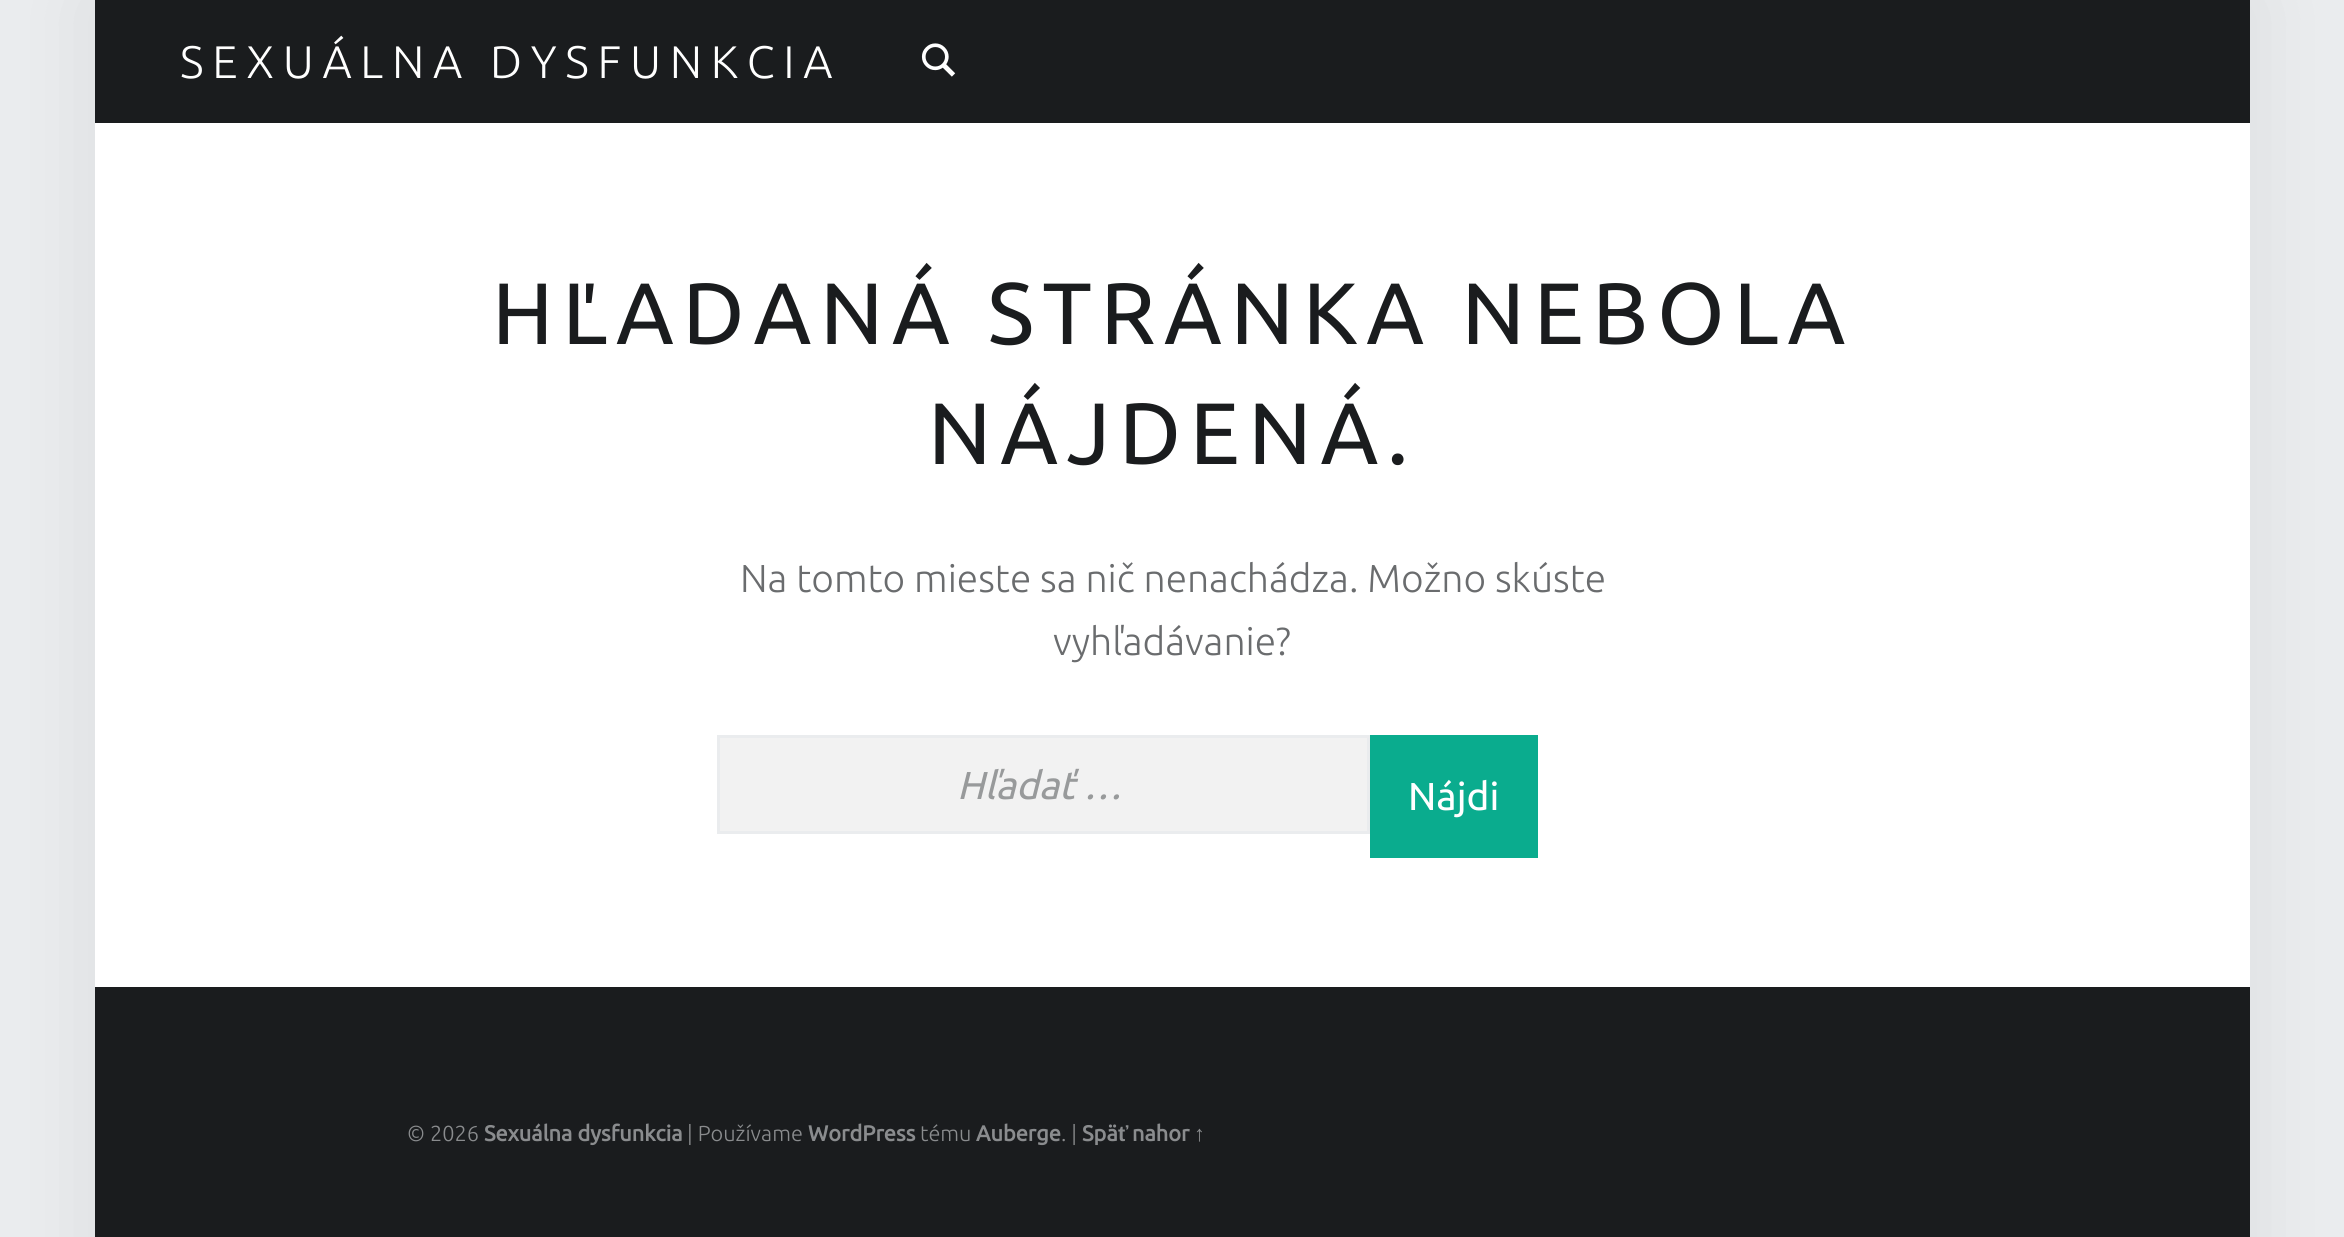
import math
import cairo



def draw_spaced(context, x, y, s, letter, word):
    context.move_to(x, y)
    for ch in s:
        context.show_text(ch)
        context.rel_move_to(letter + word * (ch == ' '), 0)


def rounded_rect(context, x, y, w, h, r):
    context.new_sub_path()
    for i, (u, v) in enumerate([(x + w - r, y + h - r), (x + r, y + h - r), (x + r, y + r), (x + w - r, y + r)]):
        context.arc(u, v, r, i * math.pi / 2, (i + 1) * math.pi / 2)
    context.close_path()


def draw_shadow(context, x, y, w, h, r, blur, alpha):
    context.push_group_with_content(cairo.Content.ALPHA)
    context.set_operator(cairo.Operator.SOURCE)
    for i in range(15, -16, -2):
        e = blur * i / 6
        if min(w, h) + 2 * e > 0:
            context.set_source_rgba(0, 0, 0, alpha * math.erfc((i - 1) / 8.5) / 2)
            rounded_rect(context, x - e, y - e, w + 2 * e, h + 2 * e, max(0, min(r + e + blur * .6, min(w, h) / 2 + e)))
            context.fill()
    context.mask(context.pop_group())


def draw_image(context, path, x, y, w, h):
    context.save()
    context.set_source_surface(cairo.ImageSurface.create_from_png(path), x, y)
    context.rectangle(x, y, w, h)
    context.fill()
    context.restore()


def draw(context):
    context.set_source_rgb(234 / 255, 236 / 255, 238 / 255)
    context.paint()
    context.set_source_rgb(0, 0, 0)
    draw_shadow(context, 95, 0, 2155, 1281, 0, 43.5, 0.07)
    context.set_source_rgb(1, 1, 1)
    context.rectangle(95, 123, 2155, 864)
    context.fill()
    context.set_source_rgb(26 / 255, 28 / 255, 30 / 255)
    context.rectangle(95, 0, 2155, 123)
    context.fill()
    draw_image(context, "images/1.png", 921, 43, 35, 34)
    context.set_source_rgb(242 / 255, 242 / 255, 242 / 255)
    context.rectangle(718.5, 736.5, 650, 96)
    context.fill_preserve()
    context.set_source_rgb(234 / 255, 236 / 255, 238 / 255)
    context.set_line_width(3)
    context.stroke()
    context.set_source_rgb(10 / 255, 172 / 255, 142 / 255)
    context.rectangle(1370, 735, 168, 123)
    context.fill()
    context.set_source_rgb(26 / 255, 28 / 255, 30 / 255)
    context.rectangle(95, 987, 2155, 250)
    context.fill()
    context.select_font_face("Ubuntu Light")
    context.set_font_size(45.6)
    context.set_source_rgb(1, 1, 1)
    draw_spaced(context, 180, 78, "SEXUÁLNA DYSFUNKCIA", 8.7, 0)
    context.select_font_face("Ubuntu")
    context.set_font_size(87.1)
    context.set_source_rgb(26 / 255, 28 / 255, 30 / 255)
    draw_spaced(context, 492, 344, "HĽADANÁ STRÁNKA NEBOLA", 8.75, 0)
    draw_spaced(context, 928, 464, "NÁJDENÁ.", 8.75, 0)
    context.select_font_face("Ubuntu Light")
    context.set_font_size(38.9)
    context.set_source_rgb(106 / 255, 108 / 255, 110 / 255)
    context.move_to(740, 592)
    context.show_text("Na tomto mieste sa nič nenachádza. Možno skúste")
    context.move_to(1053, 655)
    context.show_text("vyhľadávanie?")
    context.select_font_face("Ubuntu", cairo.FontSlant.ITALIC)
    context.set_source_rgb(152 / 255, 154 / 255, 155 / 255)
    context.move_to(957, 799)
    context.show_text("Hľadať …")
    context.select_font_face("Ubuntu")
    context.set_source_rgb(1, 1, 1)
    context.move_to(1408, 810)
    context.show_text("Nájdi")
    context.select_font_face("Ubuntu Light")
    context.set_font_size(21.75)
    context.set_source_rgb(138 / 255, 140 / 255, 142 / 255)
    context.move_to(407, 1141)
    context.show_text("© 2026")
    context.select_font_face("Ubuntu", cairo.FontSlant.NORMAL, cairo.FontWeight.BOLD)
    context.move_to(484, 1141)
    context.show_text("Sexuálna dysfunkcia")
    context.select_font_face("Ubuntu Light")
    context.move_to(687, 1141)
    context.show_text("| Používame")
    context.select_font_face("Ubuntu", cairo.FontSlant.NORMAL, cairo.FontWeight.BOLD)
    context.move_to(808, 1141)
    context.show_text("WordPress")
    context.select_font_face("Ubuntu Light")
    context.move_to(920, 1141)
    context.show_text("tému")
    context.select_font_face("Ubuntu", cairo.FontSlant.NORMAL, cairo.FontWeight.BOLD)
    context.move_to(976, 1141)
    context.show_text("Auberge")
    context.select_font_face("Ubuntu Light")
    context.move_to(1061, 1141)
    context.show_text(". |")
    context.select_font_face("Ubuntu", cairo.FontSlant.NORMAL, cairo.FontWeight.BOLD)
    context.move_to(1082, 1141)
    context.show_text("Spä")
    context.select_font_face("Liberation Sans", cairo.FontSlant.NORMAL, cairo.FontWeight.BOLD)
    context.move_to(1118, 1141)
    context.show_text("ť")
    context.select_font_face("Ubuntu", cairo.FontSlant.NORMAL, cairo.FontWeight.BOLD)
    context.move_to(1132, 1141)
    context.show_text("nahor")
    context.select_font_face("Liberation Sans", cairo.FontSlant.NORMAL, cairo.FontWeight.BOLD)
    context.move_to(1194, 1141)
    context.show_text("↑")


surface = cairo.ImageSurface(cairo.Format.RGB24, 2344, 1237)
context = cairo.Context(surface)
options = cairo.FontOptions()
options.set_hint_metrics(cairo.HintMetrics.OFF)
options.set_hint_style(cairo.HintStyle.NONE)
context.set_font_options(options)
context.set_miter_limit(4)
draw(context)
surface.write_to_png("out.png")
